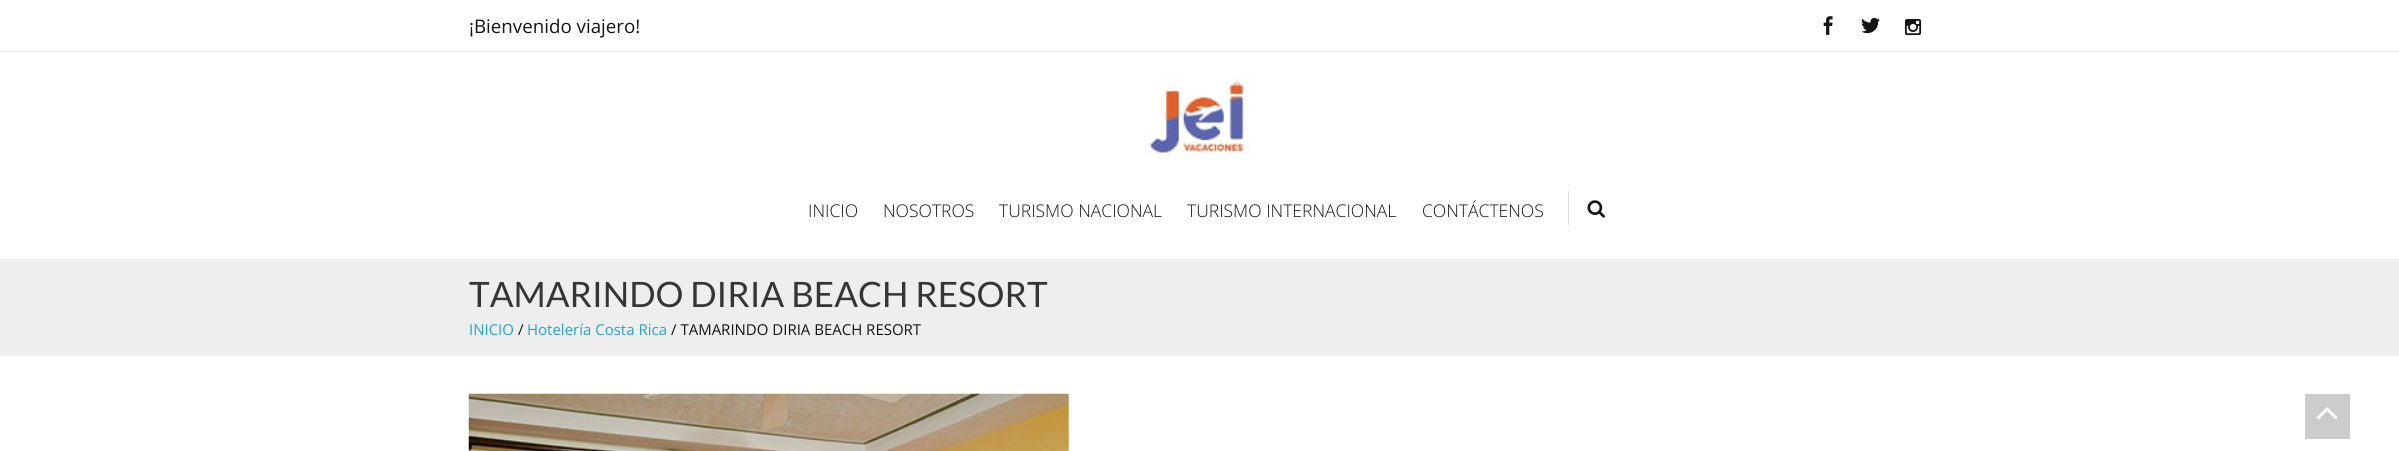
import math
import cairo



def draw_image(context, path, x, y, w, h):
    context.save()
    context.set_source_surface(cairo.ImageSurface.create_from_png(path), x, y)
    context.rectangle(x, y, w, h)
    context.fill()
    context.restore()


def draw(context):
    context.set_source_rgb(1, 1, 1)
    context.paint()
    context.set_source_rgb(238 / 255, 238 / 255, 238 / 255)
    context.rectangle(0, 51, 2399, 1)
    context.fill()
    draw_image(context, "images/1.png", 1823, 16, 10, 19)
    draw_image(context, "images/2.png", 1861, 17, 19, 17)
    draw_image(context, "images/3.png", 1905, 19, 17, 17)
    draw_image(context, "images/4.png", 1141, 75, 116, 81)
    context.set_source_rgb(219 / 255, 219 / 255, 219 / 255)
    context.rectangle(1568, 191, 1, 34)
    context.fill()
    draw_image(context, "images/5.png", 1587, 200, 18, 18)
    context.set_source_rgb(238 / 255, 238 / 255, 238 / 255)
    context.rectangle(0, 259, 2399, 97)
    context.fill()
    draw_image(context, "images/6.png", 468, 393, 601, 58)
    context.set_source_rgb(204 / 255, 204 / 255, 204 / 255)
    context.rectangle(2305, 394, 45, 45)
    context.fill()
    draw_image(context, "images/7.png", 2316, 407, 22, 13)
    context.select_font_face("Open Sans")
    context.set_font_size(18.75)
    context.set_source_rgb(20 / 255, 20 / 255, 20 / 255)
    context.move_to(469, 33)
    context.show_text("¡Bienvenido viajero!")
    context.select_font_face("Open Sans Light")
    context.set_font_size(17.5)
    context.move_to(808, 217)
    context.show_text("INICIO")
    context.move_to(883, 217)
    context.show_text("NOSOTROS")
    context.move_to(999, 217)
    context.show_text("TURISMO NACIONAL")
    context.move_to(1187, 217)
    context.show_text("TURISMO INTERNACIONAL")
    context.move_to(1422, 217)
    context.show_text("CONTÁCTENOS")
    context.select_font_face("Lato")
    context.set_font_size(35)
    context.set_source_rgb(53 / 255, 53 / 255, 53 / 255)
    context.move_to(469, 307)
    context.show_text("TAMARINDO DIRIA BEACH RESORT")
    context.select_font_face("Open Sans")
    context.set_font_size(15)
    context.set_source_rgb(37 / 255, 164 / 255, 200 / 255)
    context.move_to(469, 335)
    context.show_text("INICIO")
    context.set_source_rgb(20 / 255, 20 / 255, 20 / 255)
    context.move_to(518, 335)
    context.show_text("/")
    context.set_source_rgb(37 / 255, 164 / 255, 200 / 255)
    context.move_to(527, 335)
    context.show_text("Hotelería Costa Rica")
    context.set_source_rgb(20 / 255, 20 / 255, 20 / 255)
    context.move_to(671, 335)
    context.show_text("/ TAMARINDO DIRIA BEACH RESORT")


surface = cairo.ImageSurface(cairo.Format.RGB24, 2399, 451)
context = cairo.Context(surface)
options = cairo.FontOptions()
options.set_hint_metrics(cairo.HintMetrics.OFF)
options.set_hint_style(cairo.HintStyle.NONE)
context.set_font_options(options)
context.set_miter_limit(4)
draw(context)
surface.write_to_png("out.png")
